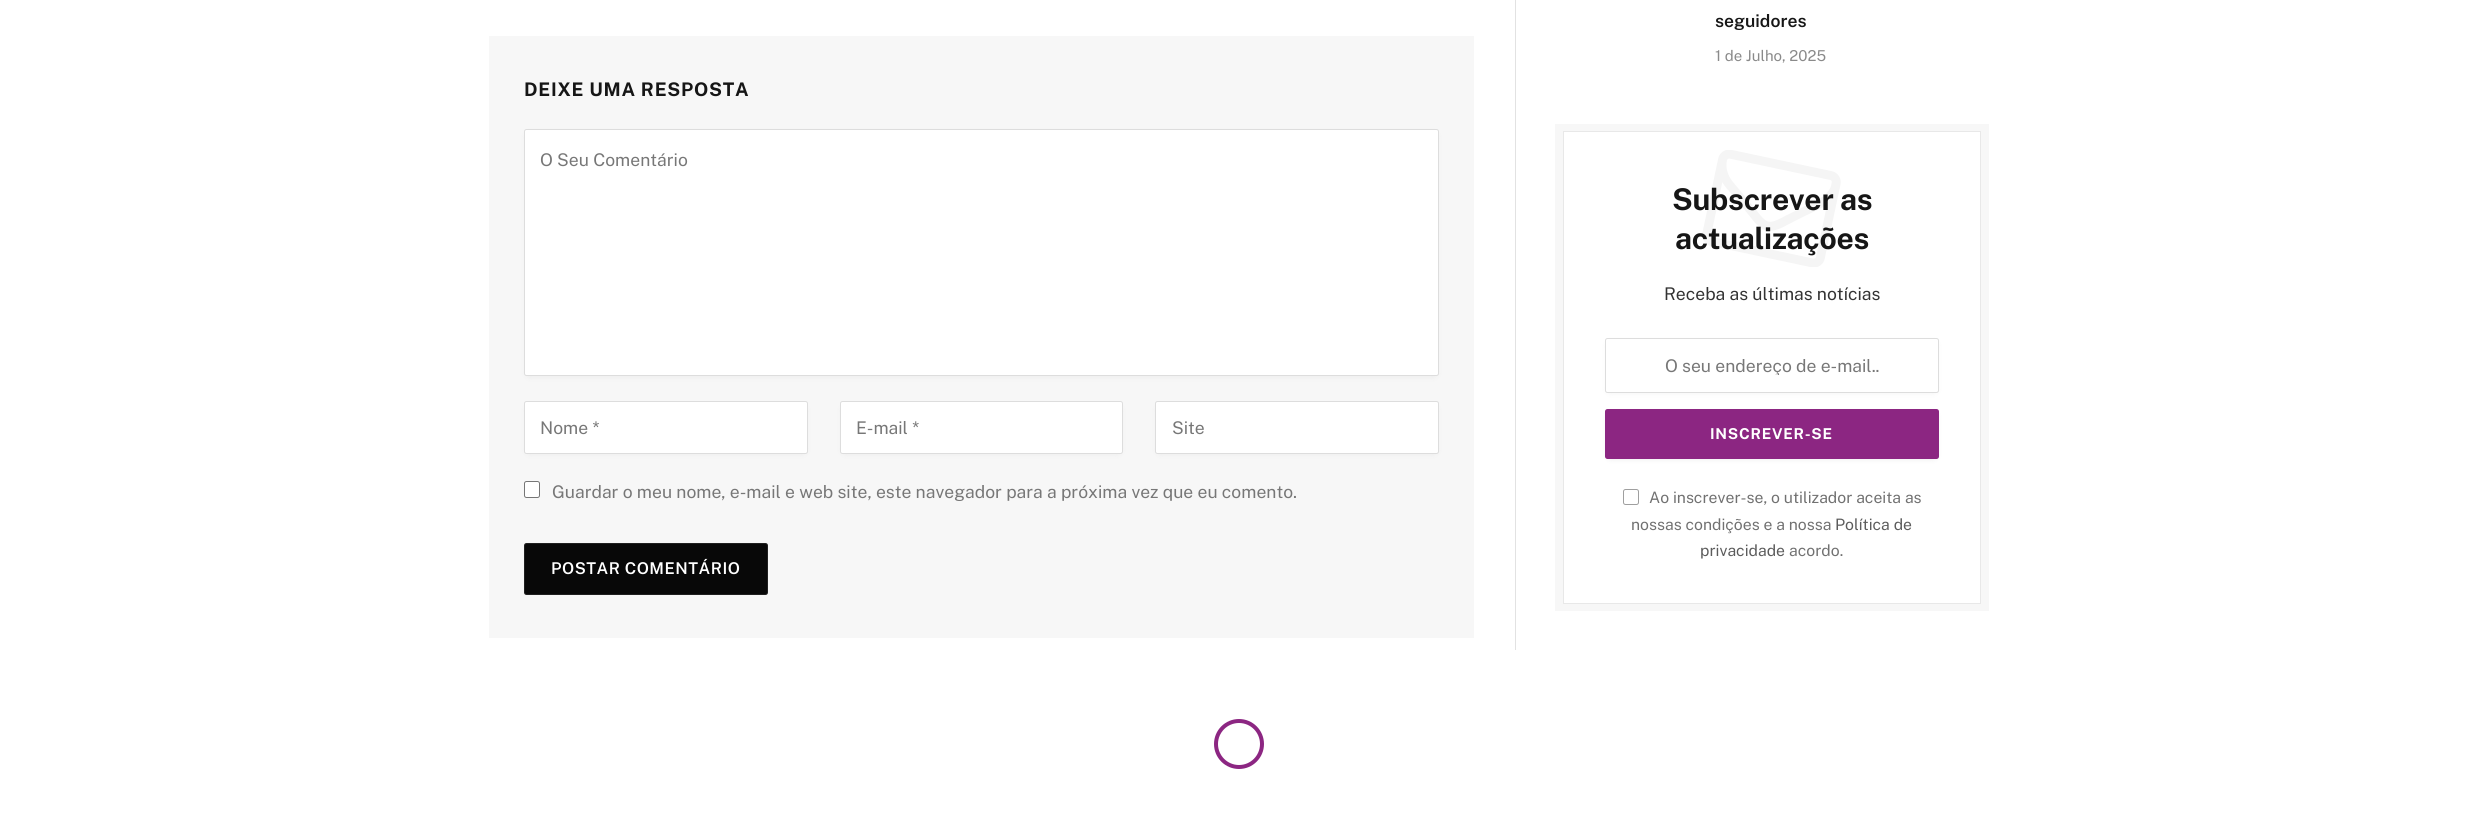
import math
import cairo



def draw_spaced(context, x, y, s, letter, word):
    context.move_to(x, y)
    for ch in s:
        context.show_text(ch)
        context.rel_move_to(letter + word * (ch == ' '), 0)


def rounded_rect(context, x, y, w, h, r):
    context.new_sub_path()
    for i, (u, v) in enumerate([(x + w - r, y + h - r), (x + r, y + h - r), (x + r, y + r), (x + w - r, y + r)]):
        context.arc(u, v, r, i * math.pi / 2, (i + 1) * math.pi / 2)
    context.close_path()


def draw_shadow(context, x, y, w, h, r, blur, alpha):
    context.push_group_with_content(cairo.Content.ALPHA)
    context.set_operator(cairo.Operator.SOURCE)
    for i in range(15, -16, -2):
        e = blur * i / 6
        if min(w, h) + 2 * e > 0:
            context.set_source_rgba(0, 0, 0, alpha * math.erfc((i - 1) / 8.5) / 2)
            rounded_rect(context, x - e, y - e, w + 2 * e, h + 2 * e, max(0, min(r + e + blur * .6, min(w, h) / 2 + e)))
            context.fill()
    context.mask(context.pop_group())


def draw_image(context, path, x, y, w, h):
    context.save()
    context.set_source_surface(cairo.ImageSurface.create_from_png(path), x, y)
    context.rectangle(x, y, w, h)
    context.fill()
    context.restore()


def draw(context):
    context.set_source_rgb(1, 1, 1)
    context.paint()
    context.set_source_rgb(247 / 255, 247 / 255, 247 / 255)
    context.rectangle(489, 36, 985, 602)
    context.fill()
    context.set_source_rgb(0, 0, 0)
    draw_shadow(context, 529, 136, 905, 238, 0, 4.5, 0.1)
    context.set_source_rgb(1, 1, 1)
    rounded_rect(context, 524.5, 129.5, 914, 246, 2)
    context.fill_preserve()
    context.set_source_rgb(221 / 255, 221 / 255, 221 / 255)
    context.set_line_width(1)
    context.stroke()
    context.set_source_rgb(0, 0, 0)
    draw_shadow(context, 529, 409, 274, 42, 0, 4.5, 0.1)
    context.set_source_rgb(1, 1, 1)
    rounded_rect(context, 524.5, 401.5, 283, 52, 2)
    context.fill_preserve()
    context.set_source_rgb(221 / 255, 221 / 255, 221 / 255)
    context.stroke()
    context.set_source_rgb(0, 0, 0)
    draw_shadow(context, 845, 409, 273, 42, 0, 4.5, 0.1)
    context.set_source_rgb(1, 1, 1)
    rounded_rect(context, 840.5, 401.5, 282, 52, 2)
    context.fill_preserve()
    context.set_source_rgb(221 / 255, 221 / 255, 221 / 255)
    context.stroke()
    context.set_source_rgb(0, 0, 0)
    draw_shadow(context, 1160, 409, 274, 42, 0, 4.5, 0.1)
    context.set_source_rgb(1, 1, 1)
    rounded_rect(context, 1155.5, 401.5, 283, 52, 2)
    context.fill_preserve()
    context.set_source_rgb(221 / 255, 221 / 255, 221 / 255)
    context.stroke()
    context.set_source_rgb(1, 1, 1)
    rounded_rect(context, 524.5, 481.5, 15, 16, 2)
    context.fill_preserve()
    context.set_source_rgb(118 / 255, 118 / 255, 118 / 255)
    context.stroke()
    context.set_source_rgb(8 / 255, 8 / 255, 8 / 255)
    rounded_rect(context, 524, 543, 244, 52, 2.5)
    context.fill()
    rounded_rect(context, 524.5, 543.5, 243, 51, 2)
    context.set_source_rgba(1, 1, 1, 0.1)
    context.stroke()
    context.set_source_rgb(226 / 255, 226 / 255, 226 / 255)
    context.rectangle(1515, 0, 1, 650)
    context.fill()
    context.rectangle(1559, 128, 426, 479)
    context.set_source_rgb(247 / 255, 247 / 255, 247 / 255)
    context.set_line_width(8)
    context.stroke()
    context.rectangle(1563.5, 131.5, 417, 472)
    context.set_source_rgb(232 / 255, 232 / 255, 232 / 255)
    context.set_line_width(1)
    context.stroke()
    context.set_source_rgb(0, 0, 0)
    draw_shadow(context, 1610, 345, 324, 45, 0, 4.5, 0.1)
    context.set_source_rgb(1, 1, 1)
    rounded_rect(context, 1605.5, 338.5, 333, 54, 2)
    context.fill_preserve()
    context.set_source_rgb(221 / 255, 221 / 255, 221 / 255)
    context.stroke()
    context.set_source_rgb(0, 0, 0)
    draw_shadow(context, 1610, 416, 324, 40, 0, 4.5, 0.16)
    context.set_source_rgb(140 / 255, 38 / 255, 130 / 255)
    rounded_rect(context, 1605, 409, 334, 50, 2.5)
    context.fill()
    rounded_rect(context, 1623.5, 489.5, 15, 15, 2)
    context.set_source_rgb(159 / 255, 159 / 255, 159 / 255)
    context.stroke()
    context.arc(1239, 744, 23, 0, 2 * math.pi)
    context.set_source_rgb(140 / 255, 38 / 255, 130 / 255)
    context.set_line_width(4)
    context.stroke()
    context.select_font_face("Public Sans", cairo.FontSlant.NORMAL, cairo.FontWeight.BOLD)
    context.set_font_size(18.75)
    context.set_source_rgb(22 / 255, 22 / 255, 22 / 255)
    draw_spaced(context, 524, 96, "DEIXE UMA RESPOSTA", 0.75, 0)
    context.select_font_face("Public Sans")
    context.set_font_size(17.5)
    context.set_source_rgb(119 / 255, 119 / 255, 119 / 255)
    context.move_to(540, 166)
    context.show_text("O Seu Comentário")
    context.move_to(540, 434)
    context.show_text("Nome *")
    context.move_to(856, 434)
    context.show_text("E-mail *")
    context.move_to(1172, 434)
    context.show_text("Site")
    context.move_to(552, 498)
    context.show_text("Guardar o meu nome, e-mail e web site, este navegador para a próxima vez que eu comento.")
    context.select_font_face("Public Sans SemiBold")
    context.set_font_size(16.25)
    context.set_source_rgb(1, 1, 1)
    draw_spaced(context, 551, 574, "POSTAR COMENTÁRIO", 0.5, 0)
    context.set_font_size(17.5)
    context.set_source_rgb(22 / 255, 22 / 255, 22 / 255)
    context.move_to(1715, 27)
    context.show_text("seguidores")
    context.select_font_face("Public Sans")
    context.set_font_size(15)
    context.set_source_rgb(138 / 255, 138 / 255, 138 / 255)
    context.move_to(1715, 61)
    context.show_text("1 de Julho, 2025")
    context.select_font_face("Public Sans", cairo.FontSlant.NORMAL, cairo.FontWeight.BOLD)
    context.set_font_size(30)
    context.set_source_rgb(22 / 255, 22 / 255, 22 / 255)
    draw_spaced(context, 1672, 210, "Subscrever as", -0.25, 0)
    draw_spaced(context, 1675, 249, "actualizações", -0.25, 0)
    draw_image(context, "images/1.png", 1702, 150, 139, 117)
    context.select_font_face("Public Sans")
    context.set_font_size(17.5)
    context.set_source_rgb(51 / 255, 51 / 255, 51 / 255)
    context.move_to(1664, 300)
    context.show_text("Receba as últimas notícias")
    context.save()
    context.rectangle(1621, 355, 302, 20)
    context.clip()
    context.set_source_rgb(119 / 255, 119 / 255, 119 / 255)
    context.move_to(1665, 372)
    context.show_text("O seu endereço de e-mail..")
    context.restore()
    context.select_font_face("Public Sans", cairo.FontSlant.NORMAL, cairo.FontWeight.BOLD)
    context.set_font_size(15)
    context.set_source_rgb(1, 1, 1)
    draw_spaced(context, 1710, 439, "INSCREVER-SE", 0.75, 0)
    context.select_font_face("Public Sans")
    context.set_font_size(15.75)
    context.set_source_rgb(113 / 255, 113 / 255, 113 / 255)
    context.move_to(1649, 503)
    context.show_text("Ao inscrever-se, o utilizador aceita as")
    context.move_to(1631, 530)
    context.show_text("nossas condições e a nossa")
    context.set_source_rgb(92 / 255, 92 / 255, 92 / 255)
    context.move_to(1835, 530)
    context.show_text("Política de")
    context.move_to(1700, 556)
    context.show_text("privacidade")
    context.set_source_rgb(113 / 255, 113 / 255, 113 / 255)
    context.move_to(1789, 556)
    context.show_text("acordo.")


surface = cairo.ImageSurface(cairo.Format.RGB24, 2477, 819)
context = cairo.Context(surface)
options = cairo.FontOptions()
options.set_hint_metrics(cairo.HintMetrics.OFF)
options.set_hint_style(cairo.HintStyle.NONE)
context.set_font_options(options)
context.set_miter_limit(4)
draw(context)
surface.write_to_png("out.png")
